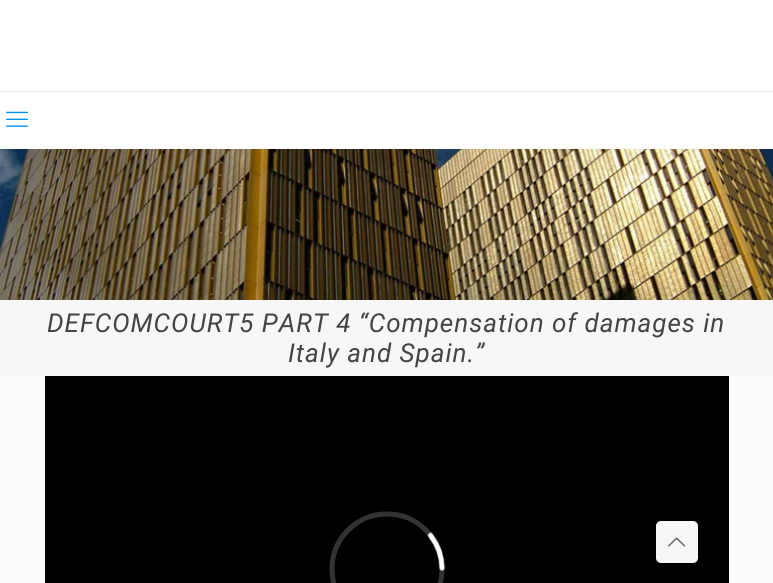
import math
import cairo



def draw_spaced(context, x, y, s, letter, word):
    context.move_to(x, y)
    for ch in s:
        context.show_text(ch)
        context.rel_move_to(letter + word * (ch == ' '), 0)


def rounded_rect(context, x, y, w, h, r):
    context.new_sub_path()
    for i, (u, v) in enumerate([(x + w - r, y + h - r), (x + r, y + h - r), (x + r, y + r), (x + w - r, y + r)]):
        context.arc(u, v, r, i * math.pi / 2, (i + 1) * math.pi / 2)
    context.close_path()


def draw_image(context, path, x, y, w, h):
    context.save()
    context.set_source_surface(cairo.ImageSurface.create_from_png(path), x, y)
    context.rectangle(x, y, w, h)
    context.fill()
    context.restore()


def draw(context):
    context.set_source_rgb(252 / 255, 252 / 255, 252 / 255)
    context.paint()
    draw_image(context, "images/1.png", 0, 149, 773, 151)
    context.set_source_rgb(1, 1, 1)
    context.rectangle(0, 0, 773, 149)
    context.fill()
    context.set_source_rgb(235 / 255, 235 / 255, 235 / 255)
    context.rectangle(0, 91, 773, 1)
    context.fill()
    draw_image(context, "images/2.png", 6, 111, 22, 16)
    context.set_source_rgb(247 / 255, 247 / 255, 247 / 255)
    context.rectangle(0, 300, 773, 76)
    context.fill()
    draw_image(context, "images/3.png", 45, 376, 684, 207)
    rounded_rect(context, 656, 521, 42, 42, 5)
    context.fill()
    draw_image(context, "images/4.png", 668, 537, 18, 10)
    context.select_font_face("Roboto", cairo.FontSlant.ITALIC)
    context.set_font_size(26)
    context.set_source_rgb(68 / 255, 68 / 255, 68 / 255)
    draw_spaced(context, 47, 332, "DEFCOMCOURT5 PART 4 “Compensation of damages in", 1, 0)
    draw_spaced(context, 288, 362, "Italy and Spain.”", 1, 0)


surface = cairo.ImageSurface(cairo.Format.RGB24, 773, 583)
context = cairo.Context(surface)
options = cairo.FontOptions()
options.set_hint_metrics(cairo.HintMetrics.OFF)
options.set_hint_style(cairo.HintStyle.NONE)
context.set_font_options(options)
context.set_miter_limit(4)
draw(context)
surface.write_to_png("out.png")
